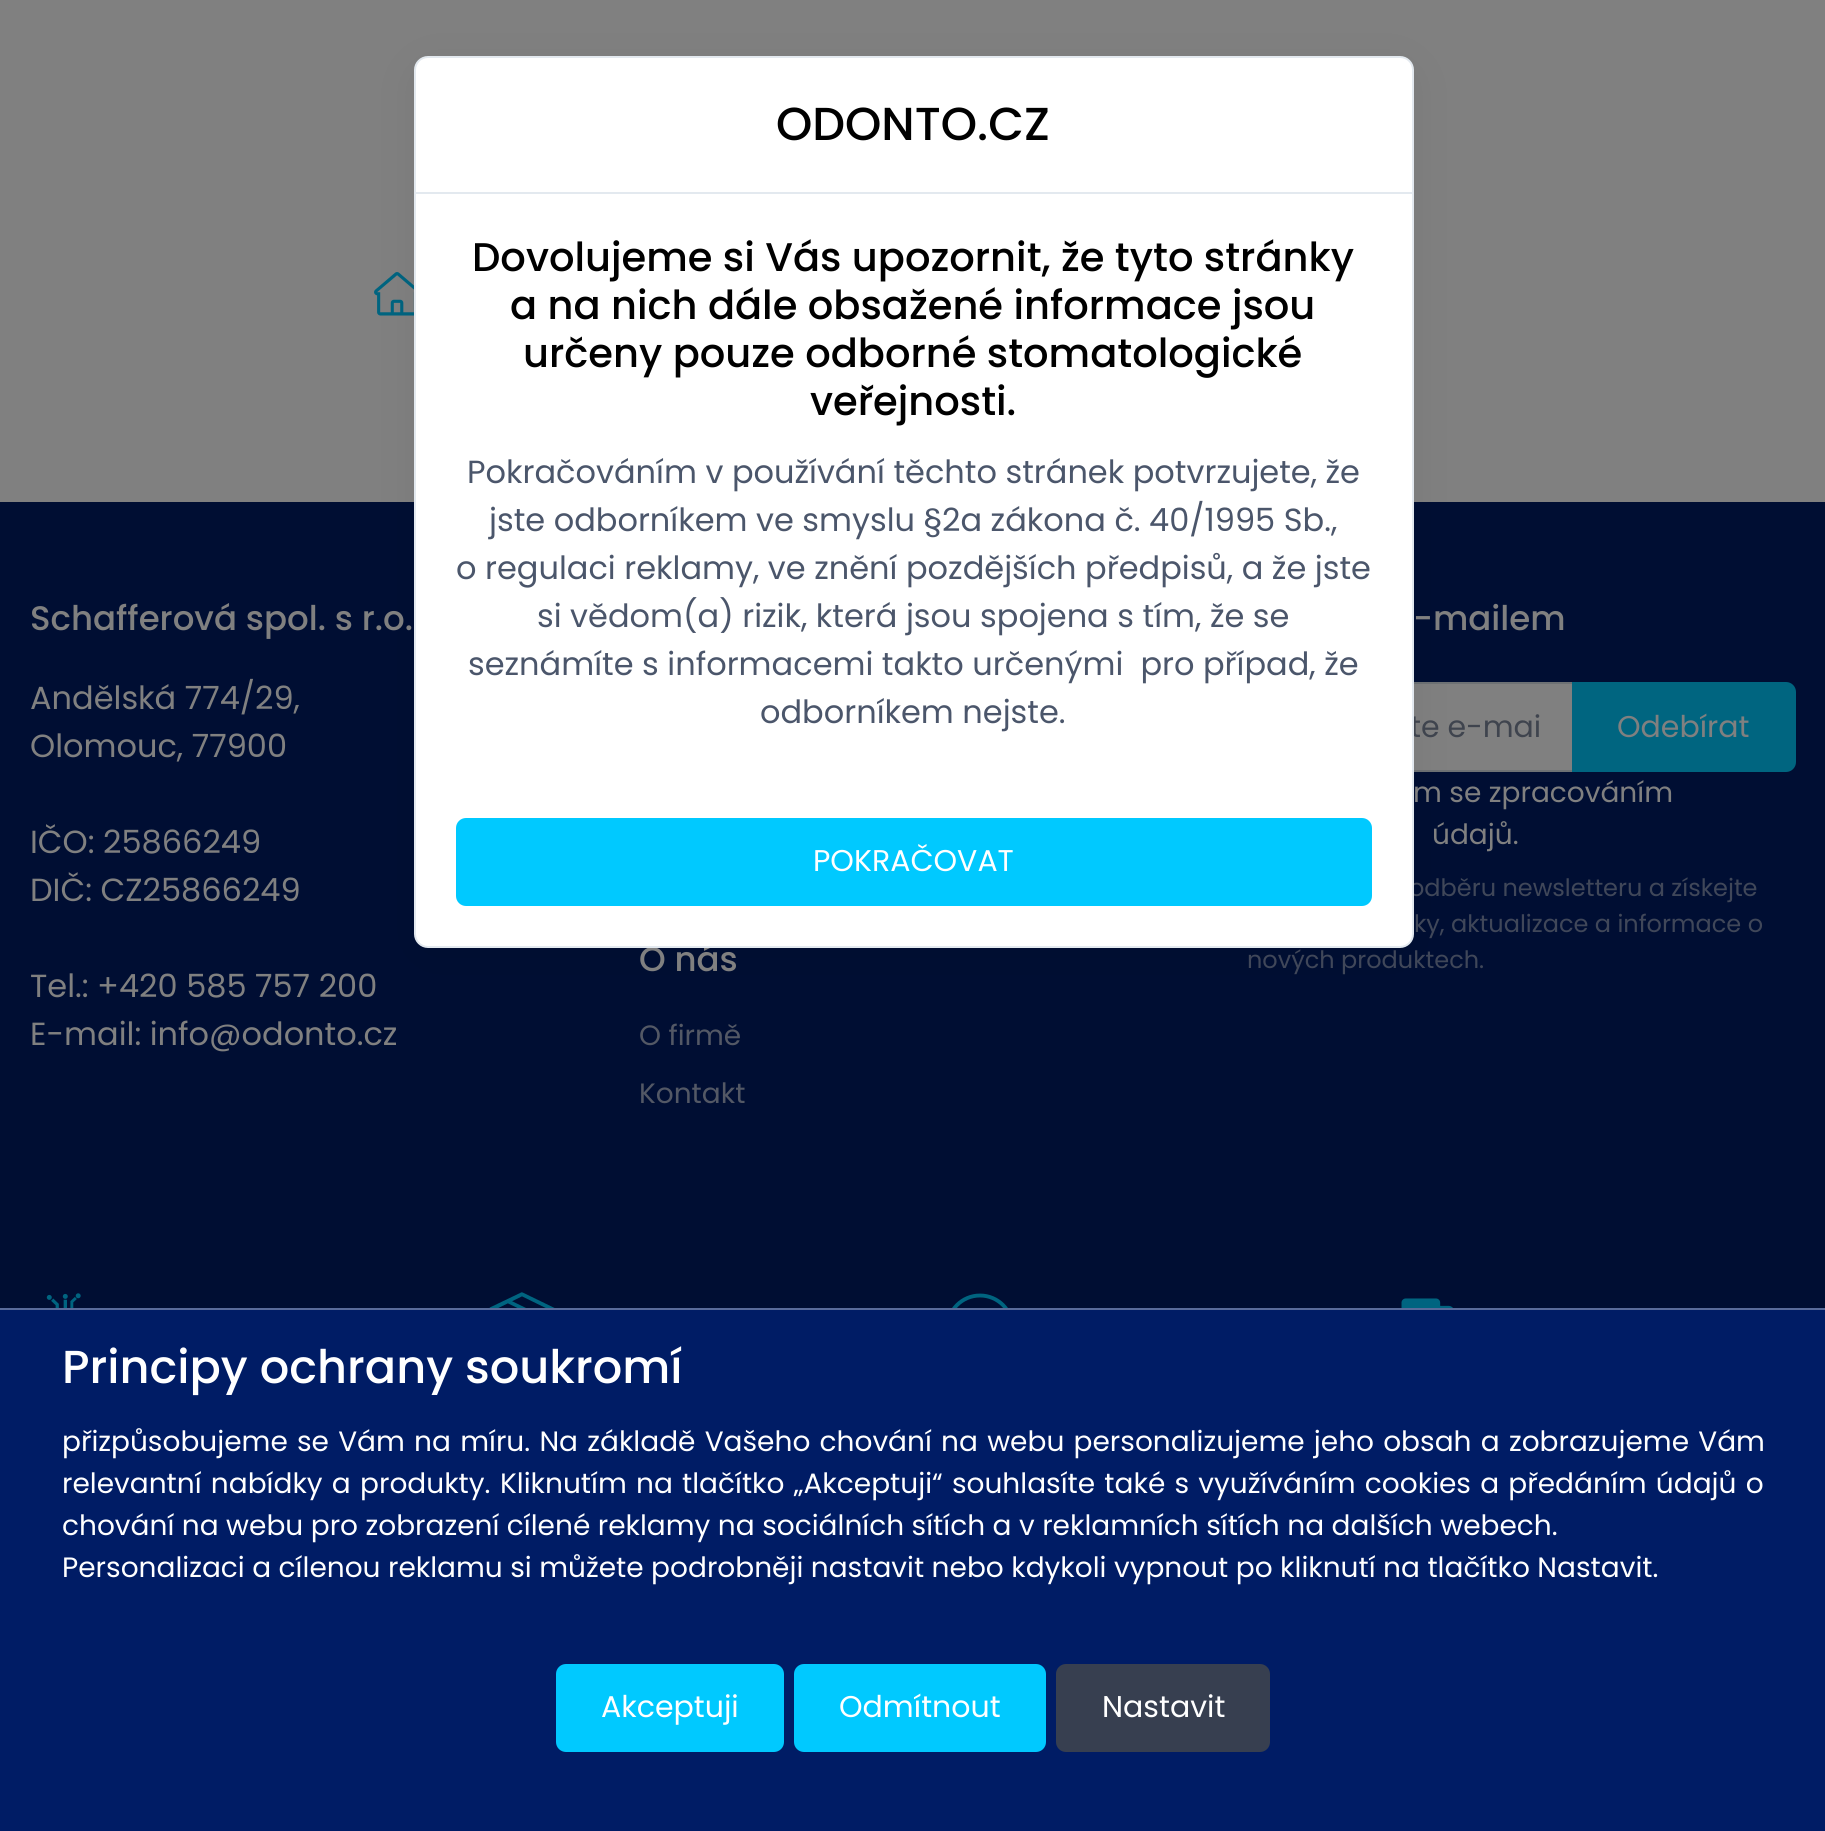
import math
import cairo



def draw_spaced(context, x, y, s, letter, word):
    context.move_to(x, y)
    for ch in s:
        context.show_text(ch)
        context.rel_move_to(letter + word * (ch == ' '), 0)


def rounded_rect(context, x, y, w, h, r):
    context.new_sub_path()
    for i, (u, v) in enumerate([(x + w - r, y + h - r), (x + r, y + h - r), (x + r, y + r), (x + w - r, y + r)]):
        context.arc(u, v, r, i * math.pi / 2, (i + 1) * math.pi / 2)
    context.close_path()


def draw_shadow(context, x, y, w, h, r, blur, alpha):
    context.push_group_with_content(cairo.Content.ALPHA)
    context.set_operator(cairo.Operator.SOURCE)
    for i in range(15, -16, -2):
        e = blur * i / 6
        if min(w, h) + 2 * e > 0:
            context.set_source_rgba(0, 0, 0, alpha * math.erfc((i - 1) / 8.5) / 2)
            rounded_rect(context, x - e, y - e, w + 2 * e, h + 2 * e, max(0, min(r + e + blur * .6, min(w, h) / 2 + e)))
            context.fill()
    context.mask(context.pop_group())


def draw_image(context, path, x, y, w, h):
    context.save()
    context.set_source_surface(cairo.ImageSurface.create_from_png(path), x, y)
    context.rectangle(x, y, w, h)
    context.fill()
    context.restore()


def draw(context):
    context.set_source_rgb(128 / 255, 128 / 255, 128 / 255)
    context.paint()
    context.set_source_rgb(0, 14 / 255, 51 / 255)
    context.rectangle(0, 502, 1825, 806)
    context.fill()
    context.set_source_rgb(128 / 255, 128 / 255, 128 / 255)
    context.rectangle(1414, 684, 158, 86)
    context.fill()
    context.rectangle(1247, 683, 326, 88)
    context.set_source_rgb(109 / 255, 113 / 255, 116 / 255)
    context.stroke()
    draw_image(context, "images/5.png", 374, 272, 40, 44)
    context.set_source_rgb(0, 0, 0)
    draw_shadow(context, 426, 78, 976, 868, 2, 24.5, 0.1)
    context.set_source_rgb(0, 101 / 255, 128 / 255)
    context.new_path()
    context.move_to(1573, 683)
    context.line_to(1786, 683)
    context.curve_to(1791, 683, 1795, 687, 1795, 692)
    context.line_to(1795, 762)
    context.curve_to(1795, 767, 1791, 771, 1786, 771)
    context.line_to(1573, 771)
    context.close_path()
    context.fill_preserve()
    context.stroke()
    draw_image(context, "images/1.png", 46, 1293, 35, 15)
    draw_image(context, "images/2.png", 489, 1292, 66, 16)
    draw_image(context, "images/3.png", 952, 1293, 56, 15)
    draw_image(context, "images/4.png", 1401, 1298, 52, 10)
    context.set_source_rgb(0, 28 / 255, 101 / 255)
    context.rectangle(0, 1310, 1825, 521)
    context.fill()
    context.set_source_rgb(89 / 255, 107 / 255, 155 / 255)
    context.rectangle(0, 1308, 1825, 2)
    context.fill()
    context.set_source_rgb(0, 201 / 255, 1)
    rounded_rect(context, 557, 1665, 226, 86, 9)
    context.fill_preserve()
    context.stroke()
    rounded_rect(context, 795, 1665, 250, 86, 9)
    context.fill_preserve()
    context.stroke()
    context.set_source_rgb(55 / 255, 63 / 255, 80 / 255)
    rounded_rect(context, 1057, 1665, 212, 86, 9)
    context.fill_preserve()
    context.stroke()
    context.select_font_face("Poppins Medium")
    context.set_font_size(34)
    context.set_source_rgb(128 / 255, 128 / 255, 128 / 255)
    context.move_to(30, 630)
    context.show_text("Schafferová spol. s r.o.")
    context.select_font_face("Poppins")
    context.set_font_size(32)
    context.move_to(30, 709)
    context.show_text("Andělská 774/29,")
    context.move_to(30, 757)
    context.show_text("Olomouc, 77900")
    context.move_to(30, 853)
    context.show_text("IČO: 25866249")
    context.move_to(30, 901)
    context.show_text("DIČ: CZ25866249")
    context.move_to(30, 997)
    context.show_text("Tel.: +420 585 757 200")
    context.move_to(30, 1045)
    context.show_text("E-mail: info@odonto.cz")
    context.select_font_face("Poppins Medium")
    context.set_font_size(34)
    context.move_to(1413, 630)
    context.show_text("-mailem")
    context.select_font_face("Poppins")
    context.set_font_size(30)
    context.set_source_rgb(63 / 255, 68 / 255, 78 / 255)
    context.move_to(1410, 737)
    context.show_text("te e-mai")
    context.set_source_rgb(128 / 255, 128 / 255, 128 / 255)
    context.move_to(1617, 737)
    context.show_text("Odebírat")
    context.set_font_size(28)
    context.move_to(1413, 802)
    context.show_text("m se zpracováním")
    context.move_to(1432, 844)
    context.show_text("údajů.")
    context.set_font_size(24)
    context.set_source_rgb(64 / 255, 71 / 255, 89 / 255)
    context.move_to(1409, 896)
    context.show_text("odběru newsletteru a získejte")
    context.move_to(1414, 932)
    context.show_text("ky, aktualizace a informace o")
    context.move_to(1247, 968)
    context.show_text("nových produktech.")
    context.select_font_face("Poppins Medium")
    context.set_font_size(34)
    context.set_source_rgb(128 / 255, 128 / 255, 128 / 255)
    context.move_to(639, 971)
    context.show_text("O nás")
    context.set_source_rgb(1, 1, 1)
    rounded_rect(context, 415, 57, 998, 890, 13)
    context.fill_preserve()
    context.set_source_rgb(227 / 255, 233 / 255, 239 / 255)
    context.stroke()
    context.set_source_rgb(0, 201 / 255, 1)
    rounded_rect(context, 457, 819, 914, 86, 9)
    context.fill_preserve()
    context.stroke()
    context.select_font_face("Poppins")
    context.set_font_size(30)
    context.set_source_rgb(1, 1, 1)
    context.move_to(813, 871)
    context.show_text("POKRAČOVAT")
    context.set_font_size(32)
    context.set_source_rgb(75 / 255, 86 / 255, 107 / 255)
    context.move_to(760, 723)
    context.show_text("odborníkem nejste.")
    context.move_to(468, 675)
    context.show_text("seznámíte s informacemi takto určenými  pro případ, že")
    context.move_to(537, 627)
    context.show_text("si vědom(a) rizik, která jsou spojena s tím, že se")
    context.move_to(456, 579)
    context.show_text("o regulaci reklamy, ve znění pozdějších předpisů, a že jste")
    context.move_to(489, 531)
    context.show_text("jste odborníkem ve smyslu §2a zákona č. 40/1995 Sb.,")
    context.move_to(467, 483)
    context.show_text("Pokračováním v používání těchto stránek potvrzujete, že")
    context.select_font_face("Poppins Medium")
    context.set_font_size(40)
    context.set_source_rgb(0, 0, 0)
    context.move_to(810, 415)
    context.show_text("veřejnosti.")
    context.move_to(523, 367)
    context.show_text("určeny pouze odborné stomatologické")
    context.move_to(510, 319)
    context.show_text("a na nich dále obsažené informace jsou")
    context.move_to(472, 271)
    context.show_text("Dovolujeme si Vás upozornit, že tyto stránky")
    context.set_font_size(46.25)
    context.move_to(776, 140)
    context.show_text("ODONTO.CZ")
    context.set_source_rgb(227 / 255, 233 / 255, 239 / 255)
    context.rectangle(416, 192, 996, 2)
    context.fill()
    context.select_font_face("Poppins")
    context.set_font_size(28)
    context.set_source_rgb(83 / 255, 88 / 255, 101 / 255)
    context.move_to(639, 1045)
    context.show_text("O firmě")
    context.move_to(639, 1103)
    context.show_text("Kontakt")
    context.select_font_face("Poppins Medium")
    context.set_font_size(46.25)
    context.set_source_rgb(1, 1, 1)
    context.move_to(62, 1383)
    context.show_text("Principy ochrany soukromí")
    context.select_font_face("Poppins")
    context.set_font_size(28)
    draw_spaced(context, 62, 1451, "přizpůsobujeme se Vám na míru. Na základě Vašeho chování na webu personalizujeme jeho obsah a zobrazujeme Vám", 0, 1.75)
    draw_spaced(context, 62, 1493, "relevantní nabídky a produkty.", 0, 1.75)
    draw_spaced(context, 500, 1493, "Kliknutím na tlačítko „Akceptuji“ souhlasíte také s využíváním cookies a předáním údajů o", 0, 1.75)
    context.move_to(62, 1535)
    context.show_text("chování na webu pro zobrazení cílené reklamy na sociálních sítích a v reklamních sítích na dalších webech.")
    context.move_to(62, 1577)
    context.show_text("Personalizaci a cílenou reklamu si můžete podrobněji nastavit nebo kdykoli vypnout po kliknutí na tlačítko Nastavit.")
    context.set_font_size(30)
    context.move_to(601, 1717)
    context.show_text("Akceptuji")
    context.move_to(839, 1717)
    context.show_text("Odmítnout")
    context.move_to(1102, 1717)
    context.show_text("Nastavit")


surface = cairo.ImageSurface(cairo.Format.RGB24, 1825, 1831)
context = cairo.Context(surface)
options = cairo.FontOptions()
options.set_hint_metrics(cairo.HintMetrics.OFF)
options.set_hint_style(cairo.HintStyle.NONE)
context.set_font_options(options)
context.set_miter_limit(4)
draw(context)
surface.write_to_png("out.png")
